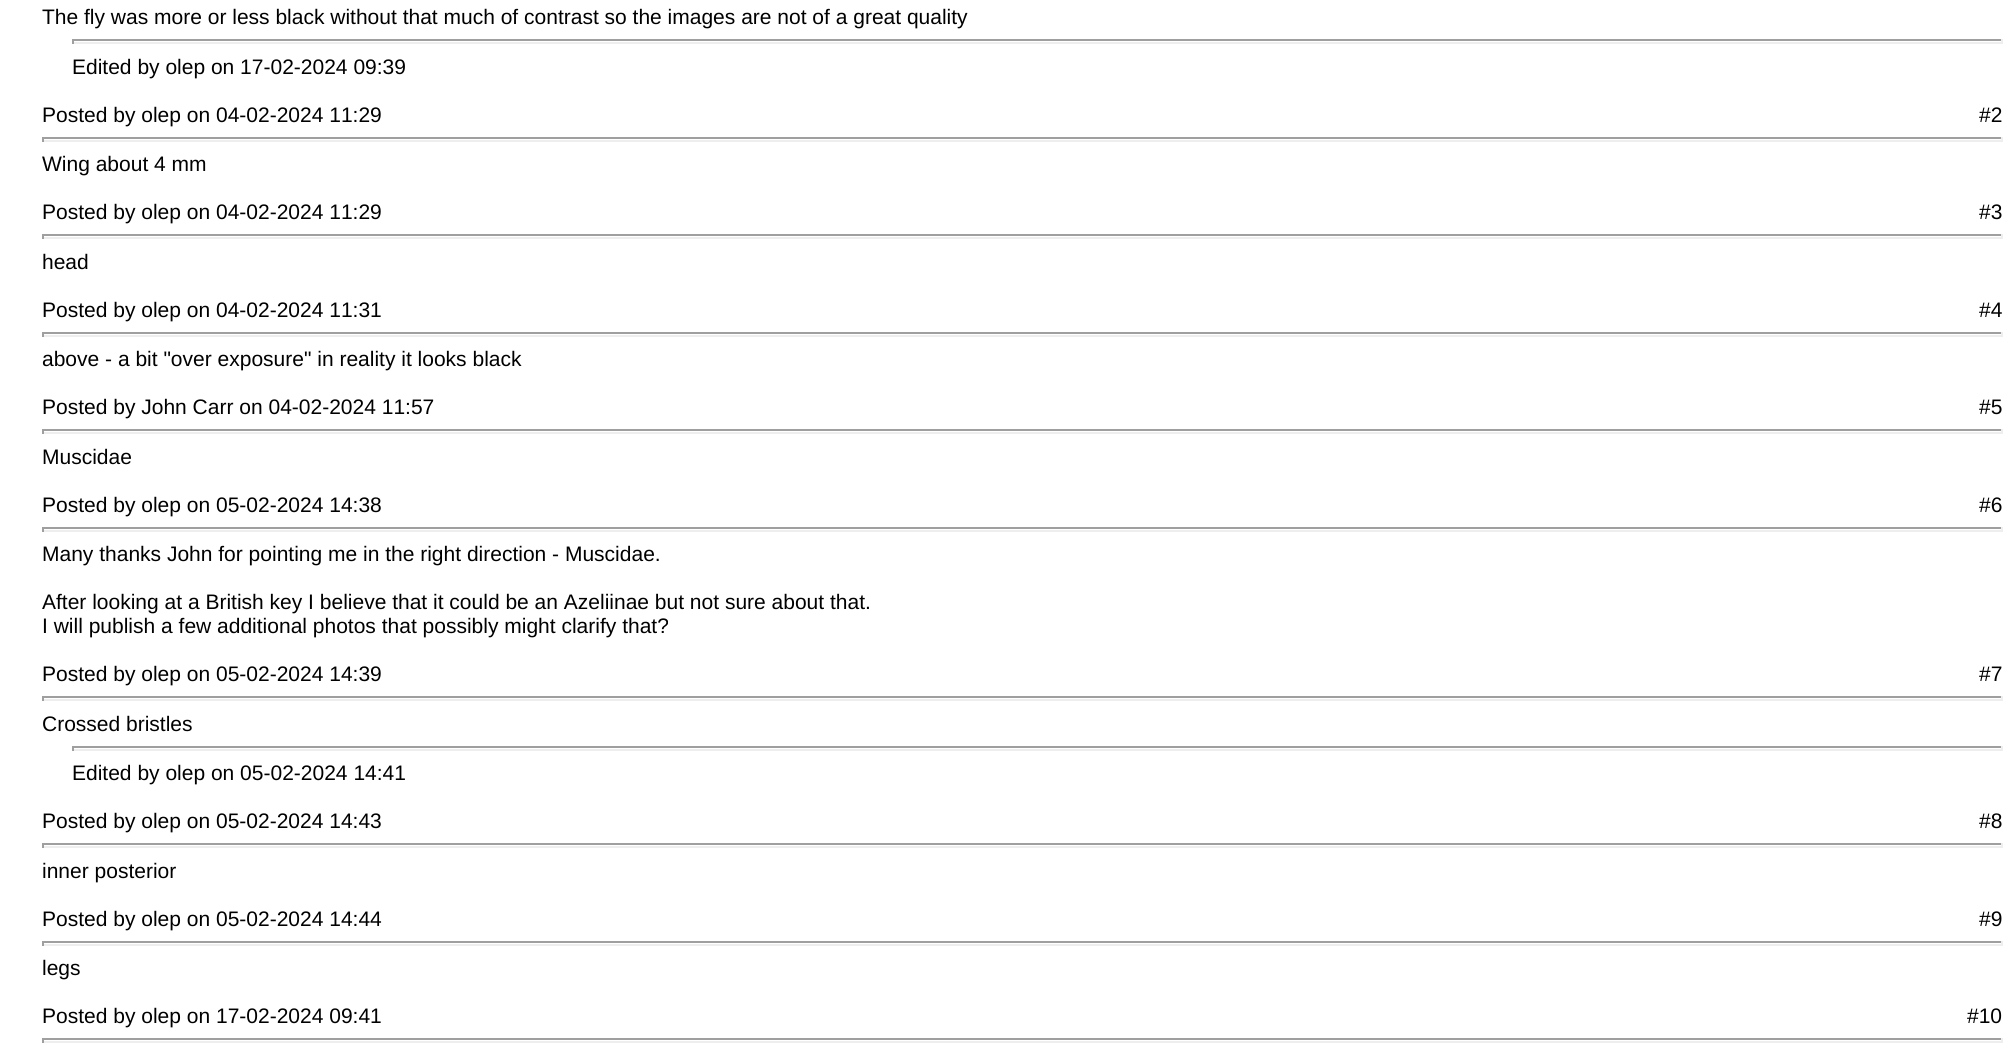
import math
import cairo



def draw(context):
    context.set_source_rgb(1, 1, 1)
    context.paint()
    context.set_source_rgb(159 / 255, 159 / 255, 159 / 255)
    context.rectangle(72, 39, 1931, 2)
    context.fill()
    context.set_source_rgb(238 / 255, 238 / 255, 238 / 255)
    context.rectangle(2001, 39, 2, 5)
    context.fill()
    context.rectangle(72, 42, 1931, 2)
    context.fill()
    context.set_source_rgb(159 / 255, 159 / 255, 159 / 255)
    context.rectangle(72, 39, 2, 5)
    context.fill()
    context.rectangle(42, 137, 1961, 2)
    context.fill()
    context.set_source_rgb(238 / 255, 238 / 255, 238 / 255)
    context.rectangle(2001, 137, 2, 5)
    context.fill()
    context.rectangle(42, 140, 1961, 2)
    context.fill()
    context.set_source_rgb(159 / 255, 159 / 255, 159 / 255)
    context.rectangle(42, 137, 2, 5)
    context.fill()
    context.rectangle(42, 234, 1961, 2)
    context.fill()
    context.set_source_rgb(238 / 255, 238 / 255, 238 / 255)
    context.rectangle(2001, 234, 2, 5)
    context.fill()
    context.rectangle(42, 237, 1961, 2)
    context.fill()
    context.set_source_rgb(159 / 255, 159 / 255, 159 / 255)
    context.rectangle(42, 234, 2, 5)
    context.fill()
    context.rectangle(42, 332, 1961, 2)
    context.fill()
    context.set_source_rgb(238 / 255, 238 / 255, 238 / 255)
    context.rectangle(2001, 332, 2, 5)
    context.fill()
    context.rectangle(42, 335, 1961, 2)
    context.fill()
    context.set_source_rgb(159 / 255, 159 / 255, 159 / 255)
    context.rectangle(42, 332, 2, 5)
    context.fill()
    context.rectangle(42, 429, 1961, 2)
    context.fill()
    context.set_source_rgb(238 / 255, 238 / 255, 238 / 255)
    context.rectangle(2001, 429, 2, 5)
    context.fill()
    context.rectangle(42, 432, 1961, 2)
    context.fill()
    context.set_source_rgb(159 / 255, 159 / 255, 159 / 255)
    context.rectangle(42, 429, 2, 5)
    context.fill()
    context.rectangle(42, 527, 1961, 2)
    context.fill()
    context.set_source_rgb(238 / 255, 238 / 255, 238 / 255)
    context.rectangle(2001, 527, 2, 5)
    context.fill()
    context.rectangle(42, 530, 1961, 2)
    context.fill()
    context.set_source_rgb(159 / 255, 159 / 255, 159 / 255)
    context.rectangle(42, 527, 2, 5)
    context.fill()
    context.rectangle(42, 696, 1961, 2)
    context.fill()
    context.set_source_rgb(238 / 255, 238 / 255, 238 / 255)
    context.rectangle(2001, 696, 2, 5)
    context.fill()
    context.rectangle(42, 699, 1961, 2)
    context.fill()
    context.set_source_rgb(159 / 255, 159 / 255, 159 / 255)
    context.rectangle(42, 696, 2, 5)
    context.fill()
    context.rectangle(72, 746, 1931, 2)
    context.fill()
    context.set_source_rgb(238 / 255, 238 / 255, 238 / 255)
    context.rectangle(2001, 746, 2, 5)
    context.fill()
    context.rectangle(72, 749, 1931, 2)
    context.fill()
    context.set_source_rgb(159 / 255, 159 / 255, 159 / 255)
    context.rectangle(72, 746, 2, 5)
    context.fill()
    context.rectangle(42, 843, 1961, 2)
    context.fill()
    context.set_source_rgb(238 / 255, 238 / 255, 238 / 255)
    context.rectangle(2001, 843, 2, 5)
    context.fill()
    context.rectangle(42, 846, 1961, 2)
    context.fill()
    context.set_source_rgb(159 / 255, 159 / 255, 159 / 255)
    context.rectangle(42, 843, 2, 5)
    context.fill()
    context.rectangle(42, 941, 1961, 2)
    context.fill()
    context.set_source_rgb(238 / 255, 238 / 255, 238 / 255)
    context.rectangle(2001, 941, 2, 5)
    context.fill()
    context.rectangle(42, 944, 1961, 2)
    context.fill()
    context.set_source_rgb(159 / 255, 159 / 255, 159 / 255)
    context.rectangle(42, 941, 2, 5)
    context.fill()
    context.rectangle(42, 1038, 1961, 2)
    context.fill()
    context.set_source_rgb(238 / 255, 238 / 255, 238 / 255)
    context.rectangle(2001, 1038, 2, 5)
    context.fill()
    context.rectangle(42, 1041, 1961, 2)
    context.fill()
    context.set_source_rgb(159 / 255, 159 / 255, 159 / 255)
    context.rectangle(42, 1038, 2, 5)
    context.fill()
    context.select_font_face("Liberation Sans")
    context.set_font_size(21)
    context.set_source_rgb(0, 0, 0)
    context.move_to(42, 24)
    context.show_text("The fly was more or less black without that much of contrast so the images are not of a great quality")
    context.move_to(72, 74)
    context.show_text("Edited by olep on 17-02-2024 09:39")
    context.move_to(42, 122)
    context.show_text("Posted by olep on 04-02-2024 11:29")
    context.move_to(1979, 122)
    context.show_text("#2")
    context.move_to(42, 171)
    context.show_text("Wing about 4 mm")
    context.move_to(42, 219)
    context.show_text("Posted by olep on 04-02-2024 11:29")
    context.move_to(1979, 219)
    context.show_text("#3")
    context.move_to(42, 269)
    context.show_text("head")
    context.move_to(42, 317)
    context.show_text("Posted by olep on 04-02-2024 11:31")
    context.move_to(1979, 317)
    context.show_text("#4")
    context.move_to(42, 366)
    context.show_text("above - a bit \"over exposure\" in reality it looks black")
    context.move_to(42, 414)
    context.show_text("Posted by John Carr on 04-02-2024 11:57")
    context.move_to(1979, 414)
    context.show_text("#5")
    context.move_to(42, 464)
    context.show_text("Muscidae")
    context.move_to(42, 512)
    context.show_text("Posted by olep on 05-02-2024 14:38")
    context.move_to(1979, 512)
    context.show_text("#6")
    context.move_to(42, 561)
    context.show_text("Many thanks John for pointing me in the right direction - Muscidae.")
    context.move_to(42, 609)
    context.show_text("After looking at a British key I believe that it could be an Azeliinae but not sure about that.")
    context.move_to(42, 633)
    context.show_text("I will publish a few additional photos that possibly might clarify that?")
    context.move_to(42, 681)
    context.show_text("Posted by olep on 05-02-2024 14:39")
    context.move_to(1979, 681)
    context.show_text("#7")
    context.move_to(42, 731)
    context.show_text("Crossed bristles")
    context.move_to(72, 780)
    context.show_text("Edited by olep on 05-02-2024 14:41")
    context.move_to(42, 828)
    context.show_text("Posted by olep on 05-02-2024 14:43")
    context.move_to(1979, 828)
    context.show_text("#8")
    context.move_to(42, 878)
    context.show_text("inner posterior")
    context.move_to(42, 926)
    context.show_text("Posted by olep on 05-02-2024 14:44")
    context.move_to(1979, 926)
    context.show_text("#9")
    context.move_to(42, 975)
    context.show_text("legs")
    context.move_to(42, 1023)
    context.show_text("Posted by olep on 17-02-2024 09:41")
    context.move_to(1967, 1023)
    context.show_text("#10")


surface = cairo.ImageSurface(cairo.Format.RGB24, 2014, 1047)
context = cairo.Context(surface)
options = cairo.FontOptions()
options.set_hint_metrics(cairo.HintMetrics.OFF)
options.set_hint_style(cairo.HintStyle.NONE)
context.set_font_options(options)
context.set_miter_limit(4)
draw(context)
surface.write_to_png("out.png")
